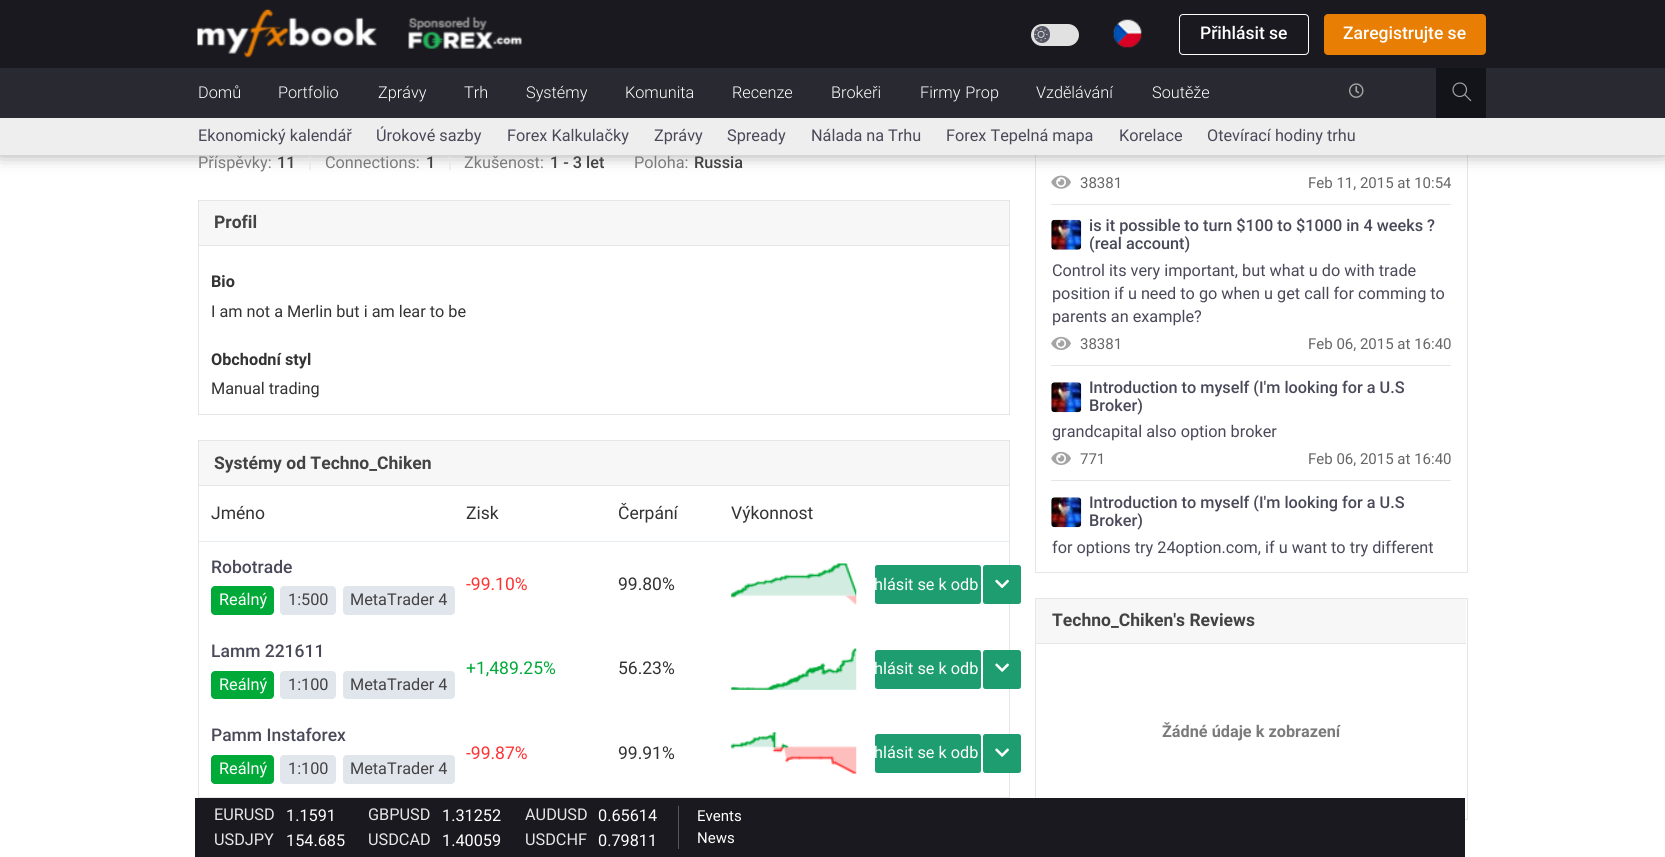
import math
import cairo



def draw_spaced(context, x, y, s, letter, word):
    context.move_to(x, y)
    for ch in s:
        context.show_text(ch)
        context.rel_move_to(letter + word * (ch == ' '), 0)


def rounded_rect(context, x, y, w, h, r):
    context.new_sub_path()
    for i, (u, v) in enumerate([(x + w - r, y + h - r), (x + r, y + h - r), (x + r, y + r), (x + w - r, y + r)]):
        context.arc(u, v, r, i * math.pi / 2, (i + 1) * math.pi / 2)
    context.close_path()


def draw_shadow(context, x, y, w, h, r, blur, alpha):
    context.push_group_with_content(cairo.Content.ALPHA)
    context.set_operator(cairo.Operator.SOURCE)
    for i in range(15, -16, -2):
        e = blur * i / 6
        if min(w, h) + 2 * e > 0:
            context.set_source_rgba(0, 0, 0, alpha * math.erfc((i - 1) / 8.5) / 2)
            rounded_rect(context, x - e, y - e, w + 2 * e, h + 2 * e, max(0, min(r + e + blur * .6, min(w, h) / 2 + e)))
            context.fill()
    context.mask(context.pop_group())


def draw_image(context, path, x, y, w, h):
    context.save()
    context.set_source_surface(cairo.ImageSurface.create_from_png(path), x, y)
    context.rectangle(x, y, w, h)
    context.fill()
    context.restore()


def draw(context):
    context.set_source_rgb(1, 1, 1)
    context.paint()
    context.rectangle(1035.5, 20.5, 432, 552)
    context.set_source_rgb(230 / 255, 230 / 255, 230 / 255)
    context.set_line_width(1)
    context.stroke()
    context.set_source_rgb(25 / 255, 25 / 255, 31 / 255)
    context.rectangle(0, 0, 1665, 68)
    context.fill()
    draw_image(context, "images/1.png", 197, 9, 180, 49)
    draw_image(context, "images/2.png", 408, 16, 114, 33)
    context.set_source_rgb(225 / 255, 225 / 255, 225 / 255)
    rounded_rect(context, 1031, 24, 48, 22, 11)
    context.fill()
    context.set_source_rgb(86 / 255, 87 / 255, 100 / 255)
    rounded_rect(context, 1034, 26, 16, 17, 8)
    context.fill()
    draw_image(context, "images/3.png", 1034, 27, 14, 14)
    draw_image(context, "images/4.png", 1113, 19, 29, 29)
    rounded_rect(context, 1179.5, 14.5, 129, 40, 3.5)
    context.set_source_rgb(1, 1, 1)
    context.stroke()
    context.set_source_rgb(232 / 255, 126 / 255, 4 / 255)
    rounded_rect(context, 1324, 14, 162, 41, 4)
    context.fill()
    draw_image(context, "images/12.png", 1051, 175, 20, 14)
    context.set_source_rgb(0, 0, 0)
    draw_shadow(context, 0, 111, 1665, 38, 0, 10.5, 0.64)
    context.set_source_rgb(41 / 255, 41 / 255, 50 / 255)
    context.rectangle(0, 68, 1665, 50)
    context.fill()
    draw_image(context, "images/5.png", 1349, 83, 15, 15)
    context.set_source_rgb(19 / 255, 19 / 255, 26 / 255)
    context.rectangle(1436, 68, 50, 50)
    context.fill()
    draw_image(context, "images/6.png", 1452, 82, 20, 20)
    context.set_source_rgb(238 / 255, 238 / 255, 238 / 255)
    context.rectangle(0, 118, 1665, 37)
    context.fill()
    context.rectangle(198.5, 200.5, 811, 214)
    context.set_source_rgb(230 / 255, 230 / 255, 230 / 255)
    context.stroke()
    context.set_source_rgb(247 / 255, 247 / 255, 247 / 255)
    context.rectangle(199, 201, 810, 44)
    context.fill()
    context.set_source_rgb(230 / 255, 230 / 255, 230 / 255)
    context.rectangle(199, 245, 810, 1)
    context.fill()
    context.rectangle(198.5, 440.5, 811, 357)
    context.stroke()
    context.set_source_rgb(247 / 255, 247 / 255, 247 / 255)
    context.rectangle(199, 441, 810, 44)
    context.fill()
    context.set_source_rgb(230 / 255, 230 / 255, 230 / 255)
    context.rectangle(199, 485, 810, 1)
    context.fill()
    context.set_source_rgb(231 / 255, 236 / 255, 241 / 255)
    context.rectangle(199, 541, 810, 1)
    context.fill()
    context.set_source_rgb(0, 170 / 255, 56 / 255)
    rounded_rect(context, 211, 586, 63, 29, 4)
    context.fill()
    context.set_source_rgb(225 / 255, 229 / 255, 236 / 255)
    rounded_rect(context, 280, 586, 56, 29, 4)
    context.fill()
    rounded_rect(context, 343, 586, 112, 29, 4)
    context.fill()
    draw_image(context, "images/7.png", 731, 563, 126, 42)
    context.set_source_rgb(30 / 255, 158 / 255, 112 / 255)
    rounded_rect(context, 875, 565, 106, 39, 2.5)
    context.fill()
    rounded_rect(context, 983, 565, 38, 39, 2.5)
    context.fill()
    draw_image(context, "images/8.png", 995, 579, 14, 10)
    context.set_source_rgb(0, 170 / 255, 56 / 255)
    rounded_rect(context, 211, 671, 63, 28, 4)
    context.fill()
    context.set_source_rgb(225 / 255, 229 / 255, 236 / 255)
    rounded_rect(context, 280, 671, 56, 28, 4)
    context.fill()
    rounded_rect(context, 343, 671, 112, 28, 4)
    context.fill()
    draw_image(context, "images/9.png", 731, 648, 126, 42)
    context.set_source_rgb(30 / 255, 158 / 255, 112 / 255)
    rounded_rect(context, 875, 650, 106, 39, 2.5)
    context.fill()
    rounded_rect(context, 983, 650, 38, 39, 2.5)
    context.fill()
    draw_image(context, "images/10.png", 995, 663, 14, 9)
    context.set_source_rgb(0, 170 / 255, 56 / 255)
    rounded_rect(context, 211, 755, 63, 29, 4)
    context.fill()
    context.set_source_rgb(225 / 255, 229 / 255, 236 / 255)
    rounded_rect(context, 280, 755, 56, 29, 4)
    context.fill()
    rounded_rect(context, 343, 755, 112, 29, 4)
    context.fill()
    draw_image(context, "images/11.png", 731, 732, 126, 42)
    context.set_source_rgb(30 / 255, 158 / 255, 112 / 255)
    rounded_rect(context, 875, 734, 106, 39, 2.5)
    context.fill()
    rounded_rect(context, 983, 734, 38, 39, 2.5)
    context.fill()
    draw_image(context, "images/10.png", 995, 748, 14, 9)
    context.set_source_rgb(230 / 255, 230 / 255, 230 / 255)
    context.rectangle(1051, 204, 400, 1)
    context.fill()
    context.rectangle(1051, 365, 400, 1)
    context.fill()
    draw_image(context, "images/13.png", 1051, 219, 31, 31)
    draw_image(context, "images/14.png", 1051, 336, 20, 14)
    context.rectangle(1051, 480, 400, 1)
    context.fill()
    draw_image(context, "images/15.png", 1051, 382, 31, 31)
    draw_image(context, "images/14.png", 1051, 451, 20, 14)
    draw_image(context, "images/15.png", 1051, 497, 31, 31)
    context.rectangle(1035.5, 598.5, 432, 221)
    context.stroke()
    context.set_source_rgb(247 / 255, 247 / 255, 247 / 255)
    context.rectangle(1036, 599, 430, 44)
    context.fill()
    context.set_source_rgb(230 / 255, 230 / 255, 230 / 255)
    context.rectangle(1036, 643, 430, 1)
    context.fill()
    context.set_source_rgb(25 / 255, 25 / 255, 31 / 255)
    context.rectangle(195, 798, 1270, 59)
    context.fill()
    context.set_source_rgb(86 / 255, 87 / 255, 100 / 255)
    context.rectangle(678, 806, 1, 43)
    context.fill()
    context.select_font_face("Roboto Medium")
    context.set_font_size(17.5)
    context.set_source_rgb(1, 1, 1)
    context.move_to(1200, 39)
    context.show_text("Přihlásit se")
    context.move_to(1343, 39)
    context.show_text("Zaregistrujte se")
    context.select_font_face("Roboto Light")
    context.set_font_size(16.25)
    context.move_to(198, 98)
    context.show_text("Domů")
    context.move_to(278, 98)
    context.show_text("Portfolio")
    context.move_to(378, 98)
    context.show_text("Zprávy")
    context.move_to(464, 98)
    context.show_text("Trh")
    context.move_to(526, 98)
    context.show_text("Systémy")
    context.move_to(625, 98)
    context.show_text("Komunita")
    context.move_to(732, 98)
    context.show_text("Recenze")
    context.move_to(831, 98)
    context.show_text("Brokeři")
    draw_spaced(context, 920, 98, "Firmy Prop", 0, 1)
    context.move_to(1036, 98)
    context.show_text("Vzdělávání")
    context.move_to(1152, 98)
    context.show_text("Soutěže")
    context.select_font_face("Roboto")
    context.set_source_rgb(73 / 255, 73 / 255, 89 / 255)
    context.move_to(198, 141)
    context.show_text("Ekonomický kalendář")
    context.move_to(376, 141)
    context.show_text("Úrokové sazby")
    context.move_to(507, 141)
    context.show_text("Forex Kalkulačky")
    context.move_to(654, 141)
    context.show_text("Zprávy")
    context.move_to(727, 141)
    context.show_text("Spready")
    context.move_to(811, 141)
    context.show_text("Nálada na Trhu")
    context.move_to(946, 141)
    context.show_text("Forex Tepelná mapa")
    context.move_to(1119, 141)
    context.show_text("Korelace")
    context.move_to(1207, 141)
    context.show_text("Otevírací hodiny trhu")
    context.set_source_rgb(123 / 255, 123 / 255, 123 / 255)
    context.move_to(198, 168)
    context.show_text("Příspěvky:")
    context.select_font_face("Roboto Medium")
    context.set_source_rgb(67 / 255, 67 / 255, 67 / 255)
    context.move_to(277, 168)
    context.show_text("11")
    context.select_font_face("Roboto")
    context.set_source_rgb(230 / 255, 230 / 255, 230 / 255)
    context.move_to(308, 168)
    context.show_text("|")
    context.set_source_rgb(123 / 255, 123 / 255, 123 / 255)
    context.move_to(325, 168)
    context.show_text("Connections:")
    context.select_font_face("Roboto Medium")
    context.set_source_rgb(67 / 255, 67 / 255, 67 / 255)
    context.move_to(426, 168)
    context.show_text("1")
    context.select_font_face("Roboto")
    context.set_source_rgb(230 / 255, 230 / 255, 230 / 255)
    context.move_to(448, 168)
    context.show_text("|")
    context.set_source_rgb(123 / 255, 123 / 255, 123 / 255)
    context.move_to(464, 168)
    context.show_text("Zkušenost:")
    context.select_font_face("Roboto Medium")
    context.set_source_rgb(67 / 255, 67 / 255, 67 / 255)
    context.move_to(550, 168)
    context.show_text("1 - 3 let")
    context.select_font_face("Roboto")
    context.set_source_rgb(123 / 255, 123 / 255, 123 / 255)
    context.move_to(634, 168)
    context.show_text("Poloha:")
    context.select_font_face("Roboto Medium")
    context.set_source_rgb(67 / 255, 67 / 255, 67 / 255)
    context.move_to(694, 168)
    context.show_text("Russia")
    context.select_font_face("Roboto", cairo.FontSlant.NORMAL, cairo.FontWeight.BOLD)
    context.set_font_size(17.5)
    context.move_to(214, 228)
    context.show_text("Profil")
    context.set_font_size(16.25)
    context.set_source_rgb(51 / 255, 51 / 255, 51 / 255)
    context.move_to(211, 287)
    context.show_text("Bio")
    context.select_font_face("Roboto")
    context.move_to(211, 317)
    context.show_text("I am not a Merlin but i am lear to be")
    context.select_font_face("Roboto", cairo.FontSlant.NORMAL, cairo.FontWeight.BOLD)
    context.move_to(211, 365)
    context.show_text("Obchodní styl")
    context.select_font_face("Roboto")
    context.move_to(211, 394)
    context.show_text("Manual trading")
    context.select_font_face("Roboto", cairo.FontSlant.NORMAL, cairo.FontWeight.BOLD)
    context.set_font_size(17.5)
    context.set_source_rgb(67 / 255, 67 / 255, 67 / 255)
    context.move_to(214, 469)
    context.show_text("Systémy od Techno_Chiken")
    context.select_font_face("Roboto")
    context.set_source_rgb(51 / 255, 51 / 255, 51 / 255)
    context.move_to(211, 519)
    context.show_text("Jméno")
    context.move_to(466, 519)
    context.show_text("Zisk")
    context.move_to(618, 519)
    context.show_text("Čerpání")
    context.move_to(731, 519)
    context.show_text("Výkonnost")
    context.select_font_face("Roboto Medium")
    context.set_source_rgb(73 / 255, 73 / 255, 89 / 255)
    context.move_to(211, 573)
    context.show_text("Robotrade")
    context.select_font_face("Roboto")
    context.set_font_size(16.25)
    context.set_source_rgb(1, 1, 1)
    context.move_to(219, 605)
    context.show_text("Reálný")
    context.set_source_rgb(67 / 255, 67 / 255, 67 / 255)
    context.move_to(288, 605)
    context.show_text("1:500")
    context.move_to(350, 605)
    context.show_text("MetaTrader 4")
    context.set_font_size(17.5)
    context.set_source_rgb(1, 50 / 255, 50 / 255)
    context.move_to(466, 590)
    context.show_text("-99.10%")
    context.set_source_rgb(51 / 255, 51 / 255, 51 / 255)
    context.move_to(618, 590)
    context.show_text("99.80%")
    context.set_font_size(16.25)
    context.set_source_rgb(1, 1, 1)
    context.move_to(874, 590)
    context.show_text("hlásit se k odb")
    context.select_font_face("Roboto Medium")
    context.set_font_size(17.5)
    context.set_source_rgb(73 / 255, 73 / 255, 89 / 255)
    context.move_to(211, 657)
    context.show_text("Lamm 221611")
    context.select_font_face("Roboto")
    context.set_font_size(16.25)
    context.set_source_rgb(1, 1, 1)
    context.move_to(219, 690)
    context.show_text("Reálný")
    context.set_source_rgb(67 / 255, 67 / 255, 67 / 255)
    context.move_to(288, 690)
    context.show_text("1:100")
    context.move_to(350, 690)
    context.show_text("MetaTrader 4")
    context.set_font_size(17.5)
    context.set_source_rgb(0, 170 / 255, 56 / 255)
    context.move_to(466, 674)
    context.show_text("+1,489.25%")
    context.set_source_rgb(51 / 255, 51 / 255, 51 / 255)
    context.move_to(618, 674)
    context.show_text("56.23%")
    context.set_font_size(16.25)
    context.set_source_rgb(1, 1, 1)
    context.move_to(874, 674)
    context.show_text("hlásit se k odb")
    context.select_font_face("Roboto Medium")
    context.set_font_size(17.5)
    context.set_source_rgb(73 / 255, 73 / 255, 89 / 255)
    context.move_to(211, 741)
    context.show_text("Pamm Instaforex")
    context.select_font_face("Roboto")
    context.set_font_size(16.25)
    context.set_source_rgb(1, 1, 1)
    context.move_to(219, 774)
    context.show_text("Reálný")
    context.set_source_rgb(67 / 255, 67 / 255, 67 / 255)
    context.move_to(288, 774)
    context.show_text("1:100")
    context.move_to(350, 774)
    context.show_text("MetaTrader 4")
    context.set_font_size(17.5)
    context.set_source_rgb(1, 50 / 255, 50 / 255)
    context.move_to(466, 759)
    context.show_text("-99.87%")
    context.set_source_rgb(51 / 255, 51 / 255, 51 / 255)
    context.move_to(618, 759)
    context.show_text("99.91%")
    context.set_font_size(16.25)
    context.set_source_rgb(1, 1, 1)
    context.move_to(874, 758)
    context.show_text("hlásit se k odb")
    context.set_font_size(15)
    context.set_source_rgb(102 / 255, 102 / 255, 102 / 255)
    context.move_to(1080, 188)
    context.show_text("38381")
    context.move_to(1308, 188)
    context.show_text("Feb 11, 2015 at 10:54")
    context.save()
    context.rectangle(1089, 218, 362, 36)
    context.clip()
    context.select_font_face("Roboto Medium")
    context.set_font_size(16.25)
    context.set_source_rgb(73 / 255, 73 / 255, 89 / 255)
    context.move_to(1089, 231)
    context.show_text("is it possible to turn $100 to $1000 in 4 weeks ?")
    context.restore()
    context.select_font_face("Roboto Medium")
    context.set_font_size(16.25)
    context.set_source_rgb(73 / 255, 73 / 255, 89 / 255)
    context.move_to(1089, 249)
    context.show_text("(real account)")
    context.select_font_face("Roboto")
    context.move_to(1052, 276)
    context.show_text("Control its very important, but what u do with trade")
    context.move_to(1052, 299)
    context.show_text("position if u need to go when u get call for comming to")
    context.move_to(1052, 322)
    context.show_text("parents an example?")
    context.set_font_size(15)
    context.set_source_rgb(102 / 255, 102 / 255, 102 / 255)
    context.move_to(1080, 349)
    context.show_text("38381")
    context.move_to(1308, 349)
    context.show_text("Feb 06, 2015 at 16:40")
    context.select_font_face("Roboto Medium")
    context.set_font_size(16.25)
    context.set_source_rgb(73 / 255, 73 / 255, 89 / 255)
    context.move_to(1089, 393)
    context.show_text("Introduction to myself (I'm looking for a U.S")
    context.move_to(1089, 411)
    context.show_text("Broker)")
    context.select_font_face("Roboto")
    context.move_to(1052, 437)
    context.show_text("grandcapital also option broker")
    context.set_font_size(15)
    context.set_source_rgb(102 / 255, 102 / 255, 102 / 255)
    context.move_to(1080, 464)
    context.show_text("771")
    context.move_to(1308, 464)
    context.show_text("Feb 06, 2015 at 16:40")
    context.select_font_face("Roboto Medium")
    context.set_font_size(16.25)
    context.set_source_rgb(73 / 255, 73 / 255, 89 / 255)
    context.move_to(1089, 508)
    context.show_text("Introduction to myself (I'm looking for a U.S")
    context.move_to(1089, 526)
    context.show_text("Broker)")
    context.select_font_face("Roboto")
    context.move_to(1052, 553)
    context.show_text("for options try 24option.com, if u want to try different")
    context.select_font_face("Roboto", cairo.FontSlant.NORMAL, cairo.FontWeight.BOLD)
    context.set_font_size(17.5)
    context.set_source_rgb(67 / 255, 67 / 255, 67 / 255)
    context.move_to(1052, 626)
    context.show_text("Techno_Chiken's Reviews")
    context.set_font_size(16.25)
    context.set_source_rgb(123 / 255, 123 / 255, 123 / 255)
    context.move_to(1162, 737)
    context.show_text("Žádné údaje k zobrazení")
    context.select_font_face("Roboto")
    context.set_source_rgb(230 / 255, 230 / 255, 230 / 255)
    context.move_to(214, 820)
    context.show_text("EURUSD")
    context.set_source_rgb(1, 1, 1)
    context.move_to(286, 821)
    context.show_text("1.1591")
    context.set_source_rgb(230 / 255, 230 / 255, 230 / 255)
    context.move_to(368, 820)
    context.show_text("GBPUSD")
    context.set_source_rgb(1, 1, 1)
    context.move_to(442, 821)
    context.show_text("1.31252")
    context.set_source_rgb(230 / 255, 230 / 255, 230 / 255)
    context.move_to(525, 820)
    context.show_text("AUDUSD")
    context.set_source_rgb(1, 1, 1)
    context.move_to(598, 821)
    context.show_text("0.65614")
    context.set_source_rgb(230 / 255, 230 / 255, 230 / 255)
    context.move_to(214, 845)
    context.show_text("USDJPY")
    context.set_source_rgb(1, 1, 1)
    context.move_to(286, 846)
    context.show_text("154.685")
    context.set_source_rgb(230 / 255, 230 / 255, 230 / 255)
    context.move_to(368, 845)
    context.show_text("USDCAD")
    context.set_source_rgb(1, 1, 1)
    context.move_to(442, 846)
    context.show_text("1.40059")
    context.set_source_rgb(230 / 255, 230 / 255, 230 / 255)
    context.move_to(525, 845)
    context.show_text("USDCHF")
    context.set_source_rgb(1, 1, 1)
    context.move_to(598, 846)
    context.show_text("0.79811")
    context.set_font_size(15)
    context.move_to(697, 821)
    context.show_text("Events")
    context.move_to(697, 843)
    context.show_text("News")


surface = cairo.ImageSurface(cairo.Format.RGB24, 1665, 857)
context = cairo.Context(surface)
options = cairo.FontOptions()
options.set_hint_metrics(cairo.HintMetrics.OFF)
options.set_hint_style(cairo.HintStyle.NONE)
context.set_font_options(options)
context.set_miter_limit(4)
draw(context)
surface.write_to_png("out.png")
